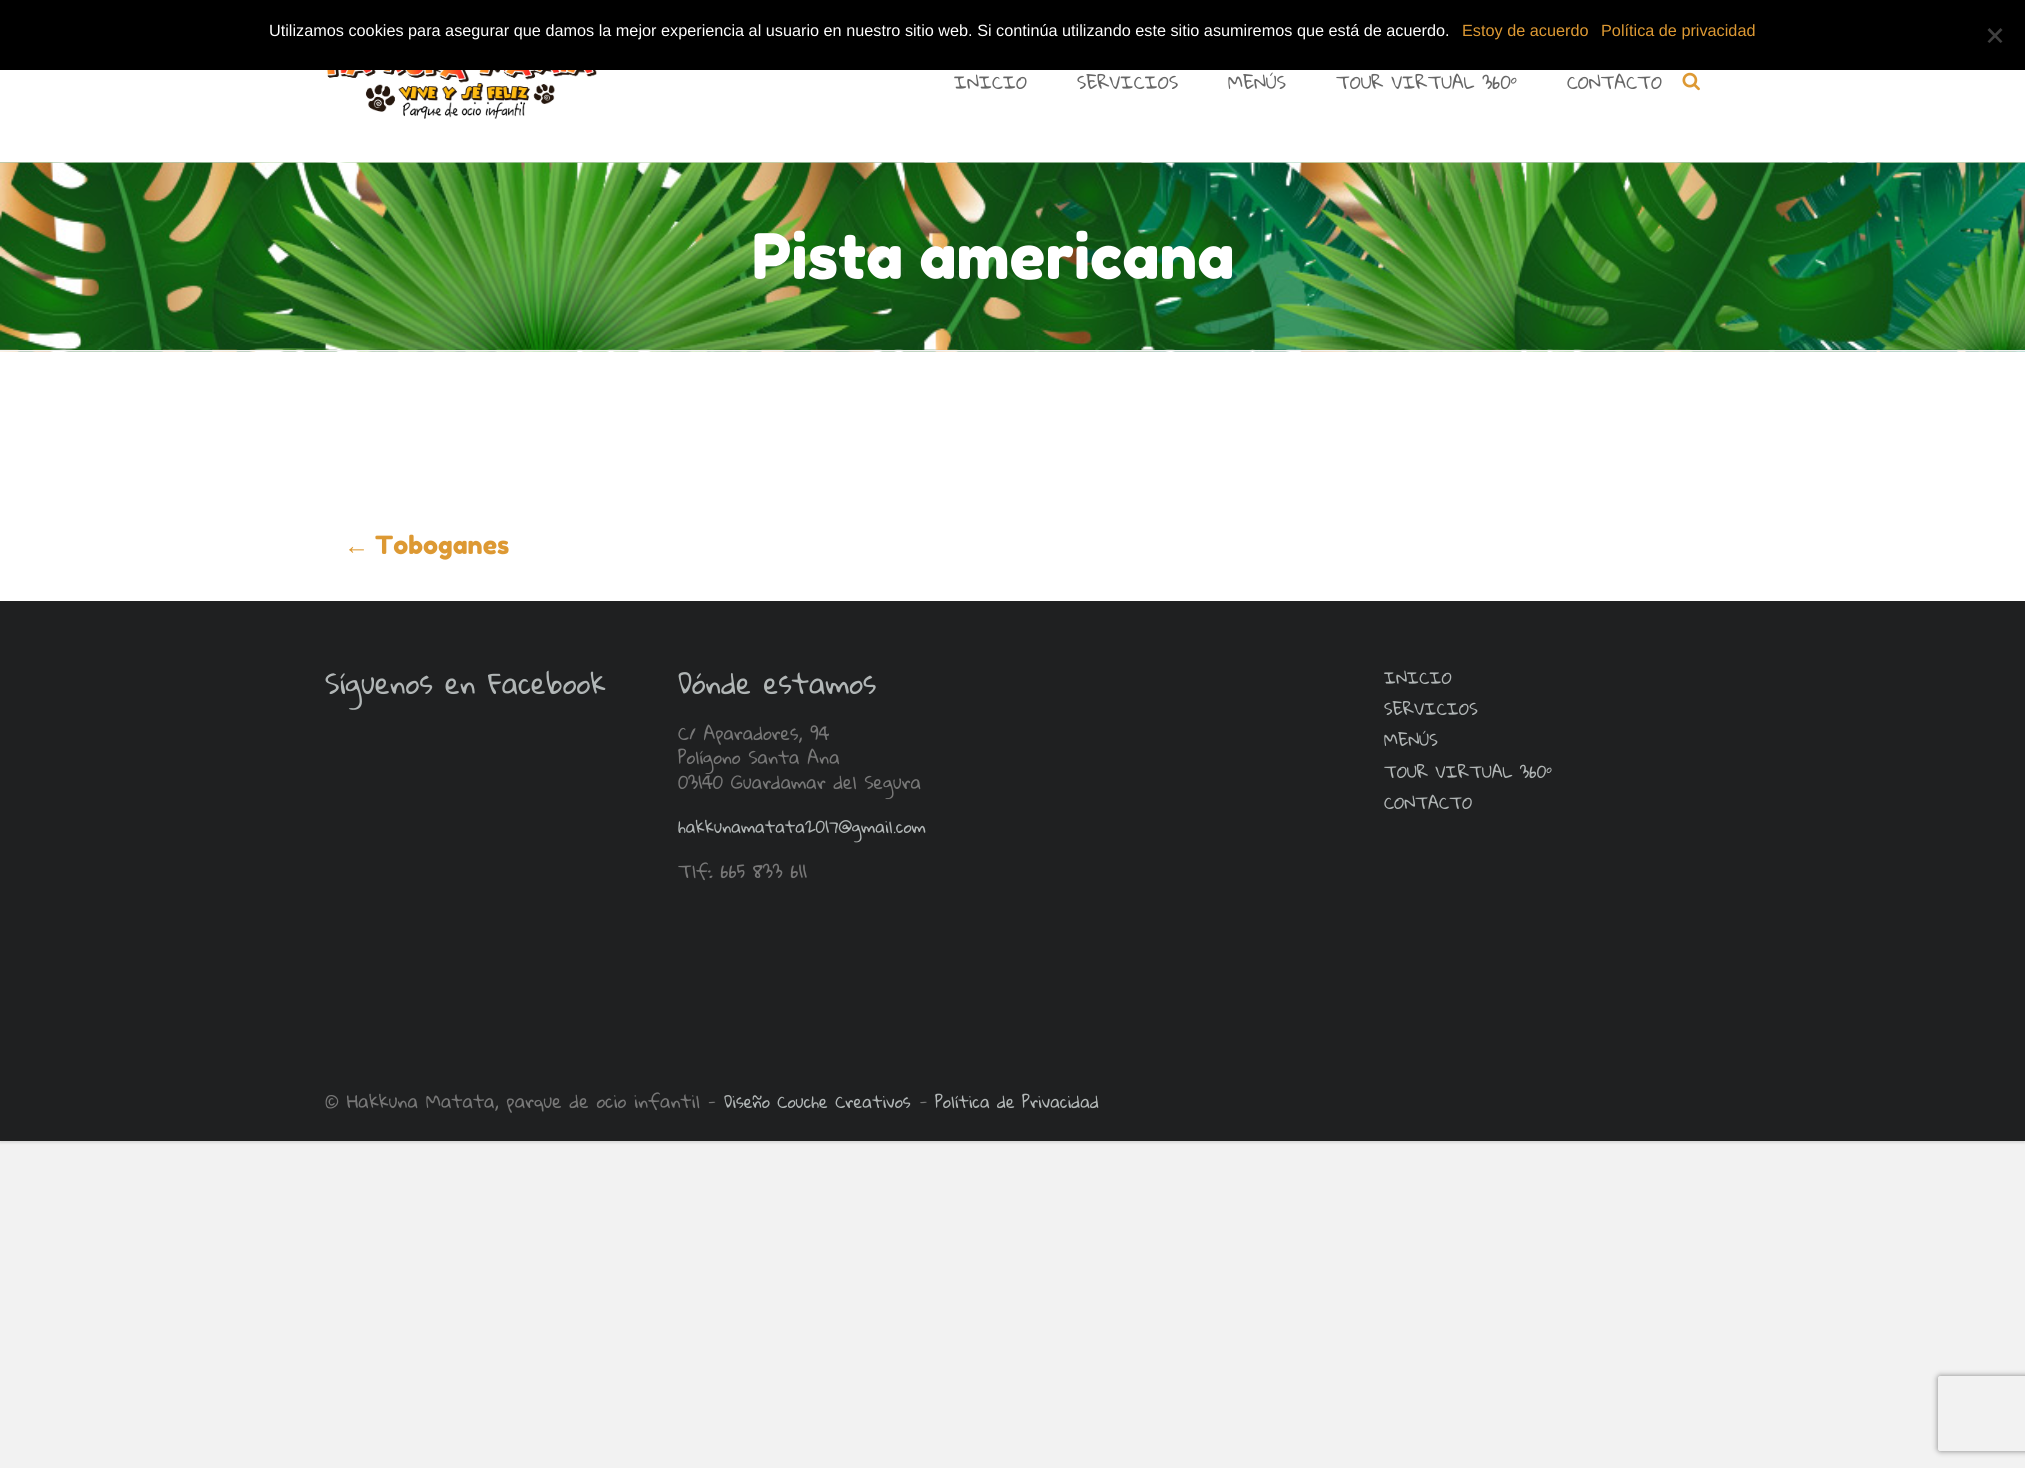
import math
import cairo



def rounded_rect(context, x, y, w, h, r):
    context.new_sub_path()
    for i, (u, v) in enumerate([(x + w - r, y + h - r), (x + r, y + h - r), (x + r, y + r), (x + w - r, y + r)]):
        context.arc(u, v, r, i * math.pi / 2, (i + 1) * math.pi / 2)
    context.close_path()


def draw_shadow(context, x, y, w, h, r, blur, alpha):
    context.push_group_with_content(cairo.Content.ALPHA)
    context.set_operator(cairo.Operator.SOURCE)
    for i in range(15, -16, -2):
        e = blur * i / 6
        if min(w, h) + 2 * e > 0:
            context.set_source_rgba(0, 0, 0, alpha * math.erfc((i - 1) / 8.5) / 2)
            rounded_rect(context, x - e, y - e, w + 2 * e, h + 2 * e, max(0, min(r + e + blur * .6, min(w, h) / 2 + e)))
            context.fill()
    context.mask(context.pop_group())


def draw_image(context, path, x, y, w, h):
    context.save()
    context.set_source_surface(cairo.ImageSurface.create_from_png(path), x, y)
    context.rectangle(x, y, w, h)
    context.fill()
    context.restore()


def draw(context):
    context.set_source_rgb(242 / 255, 242 / 255, 242 / 255)
    context.paint()
    context.set_source_rgb(0, 0, 0)
    draw_shadow(context, 0, 1, 2025, 1142, 0, 1, 0.1)
    context.set_source_rgb(0, 0, 0)
    context.rectangle(0, 0, 2025, 70)
    context.fill()
    context.set_source_rgb(64 / 255, 64 / 255, 64 / 255)
    context.new_path()
    context.move_to(2000.5, 28)
    context.line_to(2002.5, 30)
    context.line_to(1989.5, 43)
    context.line_to(1987.5, 41.5)
    context.close_path()
    context.fill()
    context.new_path()
    context.move_to(1987.5, 30)
    context.line_to(1989.5, 28)
    context.line_to(2002.5, 41.5)
    context.line_to(2000.5, 43)
    context.close_path()
    context.fill()
    context.set_source_rgb(1, 1, 1)
    context.rectangle(0, 70, 2025, 531)
    context.fill()
    draw_image(context, "images/1.png", 325, 70, 272, 49)
    draw_image(context, "images/2.png", 1682, 72, 18, 19)
    draw_image(context, "images/3.png", 0, 162, 2025, 190)
    context.set_source_rgb(242 / 255, 242 / 255, 242 / 255)
    context.rectangle(0, 350, 2025, 1)
    context.fill()
    context.set_source_rgb(31 / 255, 32 / 255, 33 / 255)
    context.rectangle(0, 601, 2025, 540)
    context.fill()
    context.save()
    context.set_fill_rule(cairo.FillRule.EVEN_ODD)
    context.new_path()
    context.move_to(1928, 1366)
    context.line_to(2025, 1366)
    context.line_to(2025, 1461)
    context.line_to(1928, 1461)
    context.close_path()
    context.move_to(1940.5, 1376)
    context.line_to(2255.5, 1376)
    context.curve_to(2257, 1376, 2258, 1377, 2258, 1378.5)
    context.line_to(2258, 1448.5)
    context.curve_to(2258, 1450, 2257, 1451, 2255.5, 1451)
    context.line_to(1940.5, 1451)
    context.curve_to(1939, 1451, 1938, 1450, 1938, 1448.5)
    context.line_to(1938, 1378.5)
    context.curve_to(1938, 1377, 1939, 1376, 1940.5, 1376)
    context.close_path()
    context.clip()
    context.set_source_rgb(128 / 255, 128 / 255, 128 / 255)
    draw_shadow(context, 1938, 1376, 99, 75, 2.5, 3, 1)
    context.restore()
    context.select_font_face("Liberation Sans")
    context.set_font_size(16.25)
    context.set_source_rgb(1, 1, 1)
    context.move_to(269, 36)
    context.show_text("Utilizamos cookies para asegurar que damos la mejor experiencia al usuario en nuestro sitio web. Si continúa utilizando este sitio asumiremos que está de acuerdo.")
    context.set_source_rgb(221 / 255, 153 / 255, 51 / 255)
    context.move_to(1462, 36)
    context.show_text("Estoy de acuerdo")
    context.move_to(1601, 36)
    context.show_text("Política de privacidad")
    context.select_font_face("Gloria Hallelujah")
    context.set_font_size(17.5)
    context.set_source_rgb(102 / 255, 102 / 255, 102 / 255)
    context.move_to(954, 89)
    context.show_text("INICIO")
    context.move_to(1077, 89)
    context.show_text("SERVICIOS")
    context.move_to(1228, 89)
    context.show_text("MENÚS")
    context.move_to(1336, 89)
    context.show_text("TOUR VIRTUAL 360º")
    context.move_to(1567, 89)
    context.show_text("CONTACTO")
    context.select_font_face("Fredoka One")
    context.set_font_size(62.5)
    context.set_source_rgb(1, 1, 1)
    context.move_to(752, 279)
    context.show_text("Pista americana")
    context.select_font_face("Liberation Serif")
    context.set_font_size(25)
    context.set_source_rgb(221 / 255, 153 / 255, 51 / 255)
    context.move_to(344, 554)
    context.show_text("←")
    context.select_font_face("Fredoka One")
    context.move_to(375, 554)
    context.show_text("Toboganes")
    context.select_font_face("Gloria Hallelujah")
    context.set_font_size(27.5)
    context.set_source_rgb(177 / 255, 182 / 255, 182 / 255)
    context.move_to(325, 694)
    context.show_text("Síguenos en Facebook")
    context.move_to(678, 694)
    context.show_text("Dónde estamos")
    context.set_font_size(17.5)
    context.set_source_rgb(119 / 255, 119 / 255, 119 / 255)
    context.move_to(678, 740)
    context.show_text("C/ Aparadores, 94")
    context.move_to(678, 764)
    context.show_text("Polígono Santa Ana")
    context.move_to(678, 789)
    context.show_text("03140 Guardamar del Segura")
    context.set_font_size(16.25)
    context.set_source_rgb(177 / 255, 182 / 255, 182 / 255)
    context.move_to(678, 833)
    context.show_text("hakkunamatata2017@gmail.com")
    context.set_font_size(17.5)
    context.set_source_rgb(119 / 255, 119 / 255, 119 / 255)
    context.move_to(678, 878)
    context.show_text("Tlf: 665 833 611")
    context.set_font_size(16.25)
    context.set_source_rgb(177 / 255, 182 / 255, 182 / 255)
    context.move_to(1384, 684)
    context.show_text("INICIO")
    context.move_to(1384, 715)
    context.show_text("SERVICIOS")
    context.move_to(1384, 746)
    context.show_text("MENÚS")
    context.move_to(1384, 778)
    context.show_text("TOUR VIRTUAL 360º")
    context.move_to(1384, 809)
    context.show_text("CONTACTO")
    context.set_font_size(17.5)
    context.set_source_rgb(119 / 255, 119 / 255, 119 / 255)
    context.move_to(325, 1108)
    context.show_text("© Hakkuna Matata, parque de ocio infantil -")
    context.set_font_size(16.25)
    context.set_source_rgb(177 / 255, 182 / 255, 182 / 255)
    context.move_to(724, 1108)
    context.show_text("Diseño Couche Creativos")
    context.set_font_size(17.5)
    context.set_source_rgb(119 / 255, 119 / 255, 119 / 255)
    context.move_to(919, 1108)
    context.show_text("-")
    context.set_font_size(16.25)
    context.set_source_rgb(177 / 255, 182 / 255, 182 / 255)
    context.move_to(935, 1108)
    context.show_text("Política de Privacidad")


surface = cairo.ImageSurface(cairo.Format.RGB24, 2025, 1468)
context = cairo.Context(surface)
options = cairo.FontOptions()
options.set_hint_metrics(cairo.HintMetrics.OFF)
options.set_hint_style(cairo.HintStyle.NONE)
context.set_font_options(options)
context.set_miter_limit(4)
draw(context)
surface.write_to_png("out.png")
